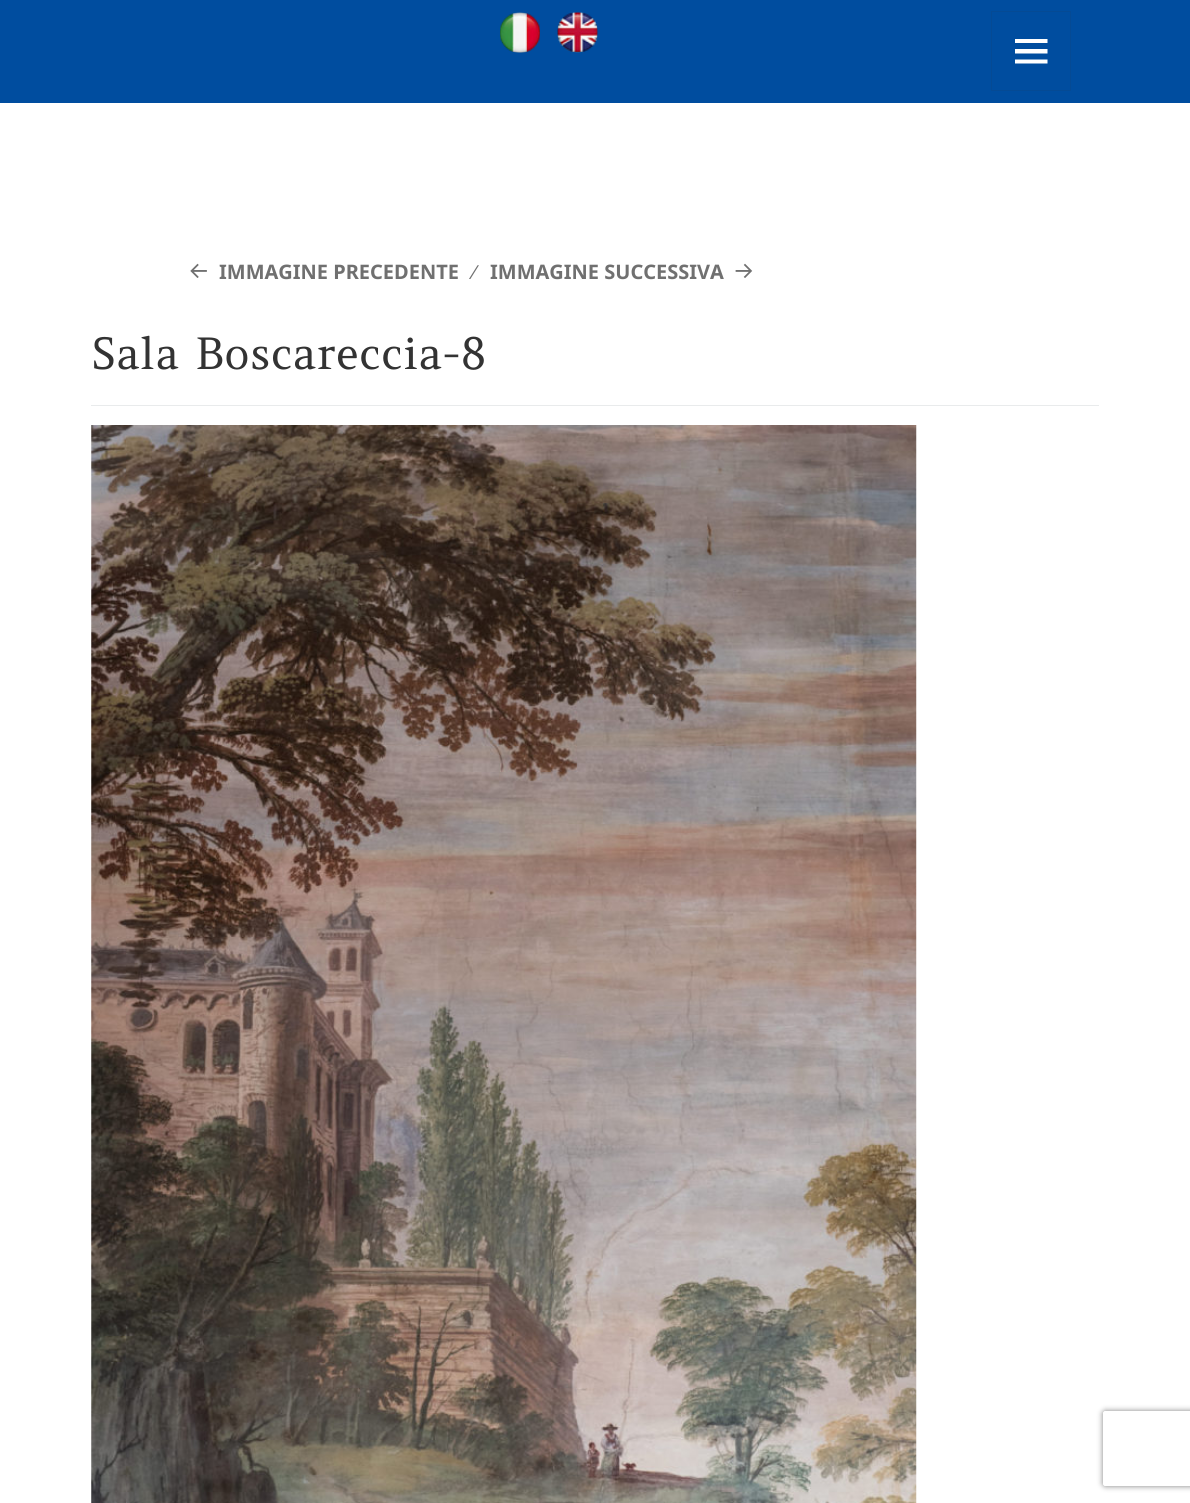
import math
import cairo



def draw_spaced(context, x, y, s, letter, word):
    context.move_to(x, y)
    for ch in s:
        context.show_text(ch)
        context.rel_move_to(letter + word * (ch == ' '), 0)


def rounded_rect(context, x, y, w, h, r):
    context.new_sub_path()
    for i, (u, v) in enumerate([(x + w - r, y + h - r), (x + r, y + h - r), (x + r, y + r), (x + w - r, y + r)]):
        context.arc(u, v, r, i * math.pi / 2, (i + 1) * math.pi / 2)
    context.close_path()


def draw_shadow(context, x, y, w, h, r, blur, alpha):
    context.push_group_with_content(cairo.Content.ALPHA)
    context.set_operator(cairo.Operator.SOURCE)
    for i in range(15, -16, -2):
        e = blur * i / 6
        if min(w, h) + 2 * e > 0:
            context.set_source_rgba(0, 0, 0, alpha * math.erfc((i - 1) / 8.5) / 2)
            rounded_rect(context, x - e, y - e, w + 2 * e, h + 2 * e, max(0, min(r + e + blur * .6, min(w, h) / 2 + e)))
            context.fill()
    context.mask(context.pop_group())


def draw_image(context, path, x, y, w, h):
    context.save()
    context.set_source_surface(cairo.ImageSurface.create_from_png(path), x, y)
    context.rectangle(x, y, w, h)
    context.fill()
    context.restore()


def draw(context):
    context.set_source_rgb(1, 1, 1)
    context.paint()
    context.set_source_rgb(0, 77 / 255, 159 / 255)
    context.rectangle(0, 0, 1190, 103)
    context.fill()
    draw_image(context, "images/1.png", 500, 12, 40, 41)
    draw_image(context, "images/2.png", 557, 12, 41, 41)
    context.rectangle(991.5, 11.5, 79, 79)
    context.set_source_rgb(5 / 255, 74 / 255, 148 / 255)
    context.set_line_width(1)
    context.stroke()
    context.set_source_rgb(1, 1, 1)
    context.new_path()
    context.move_to(1015, 63.5)
    context.line_to(1015, 59.5)
    context.line_to(1047.5, 59.5)
    context.line_to(1047.5, 63.5)
    context.close_path()
    context.move_to(1015, 39)
    context.line_to(1047.5, 39)
    context.line_to(1047.5, 43)
    context.line_to(1015, 43)
    context.close_path()
    context.move_to(1015, 53.5)
    context.line_to(1015, 49)
    context.line_to(1047.5, 49)
    context.line_to(1047.5, 53.5)
    context.close_path()
    context.fill()
    draw_image(context, "images/3.png", 190, 263, 17, 15)
    draw_image(context, "images/4.png", 735, 263, 18, 15)
    context.set_source_rgb(233 / 255, 235 / 255, 236 / 255)
    context.rectangle(91, 405, 1008, 1)
    context.fill()
    draw_image(context, "images/5.png", 91, 425, 826, 1078)
    context.save()
    context.set_fill_rule(cairo.FillRule.EVEN_ODD)
    context.new_path()
    context.move_to(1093, 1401)
    context.line_to(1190, 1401)
    context.line_to(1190, 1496)
    context.line_to(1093, 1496)
    context.close_path()
    context.move_to(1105.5, 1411)
    context.line_to(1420.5, 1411)
    context.curve_to(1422, 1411, 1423, 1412, 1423, 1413.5)
    context.line_to(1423, 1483.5)
    context.curve_to(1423, 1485, 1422, 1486, 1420.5, 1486)
    context.line_to(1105.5, 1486)
    context.curve_to(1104, 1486, 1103, 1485, 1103, 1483.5)
    context.line_to(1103, 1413.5)
    context.curve_to(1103, 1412, 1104, 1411, 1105.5, 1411)
    context.close_path()
    context.clip()
    context.set_source_rgb(128 / 255, 128 / 255, 128 / 255)
    draw_shadow(context, 1103, 1411, 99, 75, 2.5, 3, 1)
    context.restore()
    context.select_font_face("Noto Sans", cairo.FontSlant.NORMAL, cairo.FontWeight.BOLD)
    context.set_font_size(20)
    context.set_source_rgb(112 / 255, 112 / 255, 112 / 255)
    context.move_to(219, 279)
    context.show_text("IMMAGINE PRECEDENTE")
    context.select_font_face("Liberation Sans")
    context.move_to(473, 279)
    context.show_text("∕")
    context.select_font_face("Noto Sans", cairo.FontSlant.NORMAL, cairo.FontWeight.BOLD)
    context.move_to(490, 279)
    context.show_text("IMMAGINE SUCCESSIVA")
    context.select_font_face("Amethysta")
    context.set_font_size(43.75)
    context.set_source_rgb(51 / 255, 51 / 255, 51 / 255)
    draw_spaced(context, 92, 369, "Sala Boscareccia-8", 0.6, 0)


surface = cairo.ImageSurface(cairo.Format.RGB24, 1190, 1503)
context = cairo.Context(surface)
options = cairo.FontOptions()
options.set_hint_metrics(cairo.HintMetrics.OFF)
options.set_hint_style(cairo.HintStyle.NONE)
context.set_font_options(options)
context.set_miter_limit(4)
draw(context)
surface.write_to_png("out.png")
